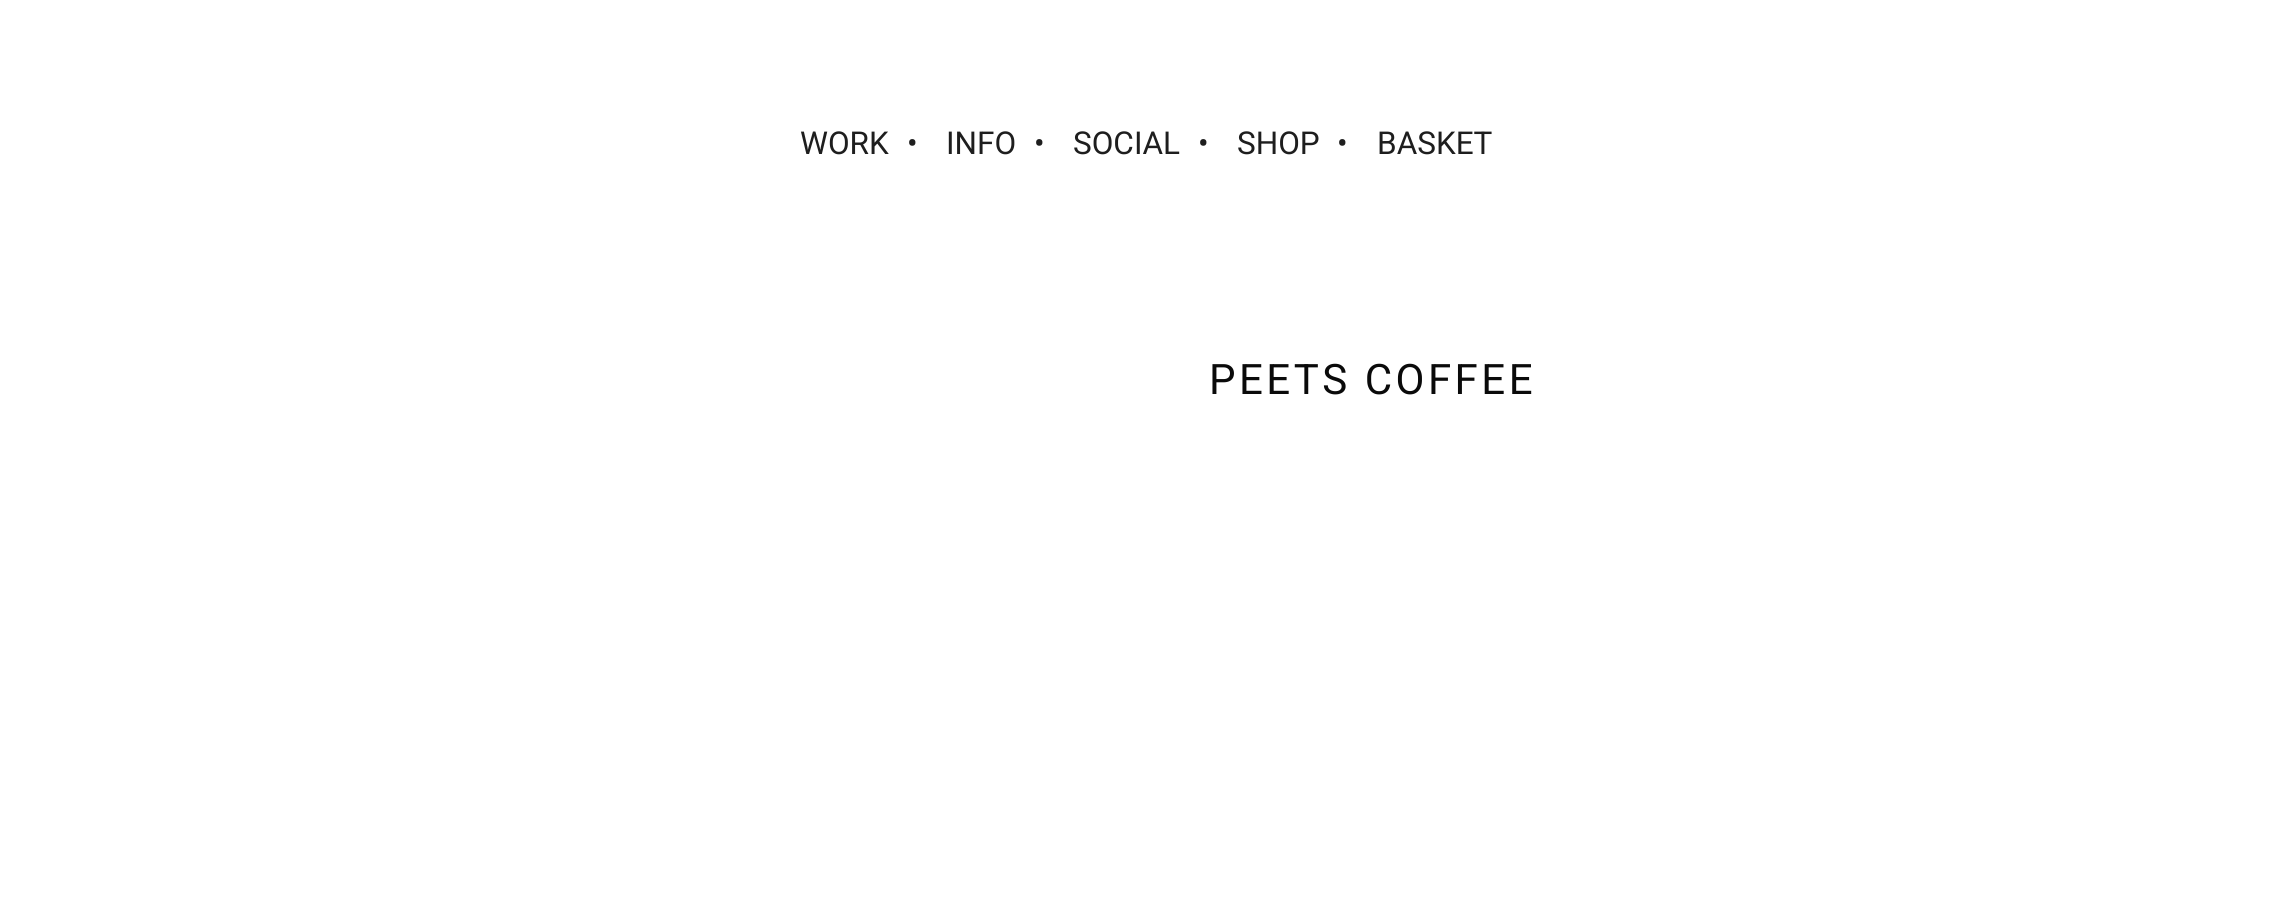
import math
import cairo



def draw_spaced(context, x, y, s, letter, word):
    context.move_to(x, y)
    for ch in s:
        context.show_text(ch)
        context.rel_move_to(letter + word * (ch == ' '), 0)


def draw(context):
    context.set_source_rgb(1, 1, 1)
    context.paint()
    context.select_font_face("Roboto")
    context.set_font_size(31.5)
    context.set_source_rgb(30 / 255, 30 / 255, 30 / 255)
    context.move_to(800, 154)
    context.show_text("WORK")
    context.move_to(907, 154)
    context.show_text("•")
    context.move_to(946, 154)
    context.show_text("INFO")
    context.move_to(1034, 154)
    context.show_text("•")
    context.move_to(1073, 154)
    context.show_text("SOCIAL")
    context.move_to(1198, 154)
    context.show_text("•")
    context.move_to(1237, 154)
    context.show_text("SHOP")
    context.move_to(1337, 154)
    context.show_text("•")
    context.move_to(1377, 154)
    context.show_text("BASKET")
    context.set_font_size(42)
    context.set_source_rgb(10 / 255, 10 / 255, 10 / 255)
    draw_spaced(context, 1209, 394, "PEETS COFFEE", 3.5, 0)


surface = cairo.ImageSurface(cairo.Format.RGB24, 2292, 909)
context = cairo.Context(surface)
options = cairo.FontOptions()
options.set_hint_metrics(cairo.HintMetrics.OFF)
options.set_hint_style(cairo.HintStyle.NONE)
context.set_font_options(options)
context.set_miter_limit(4)
draw(context)
surface.write_to_png("out.png")
